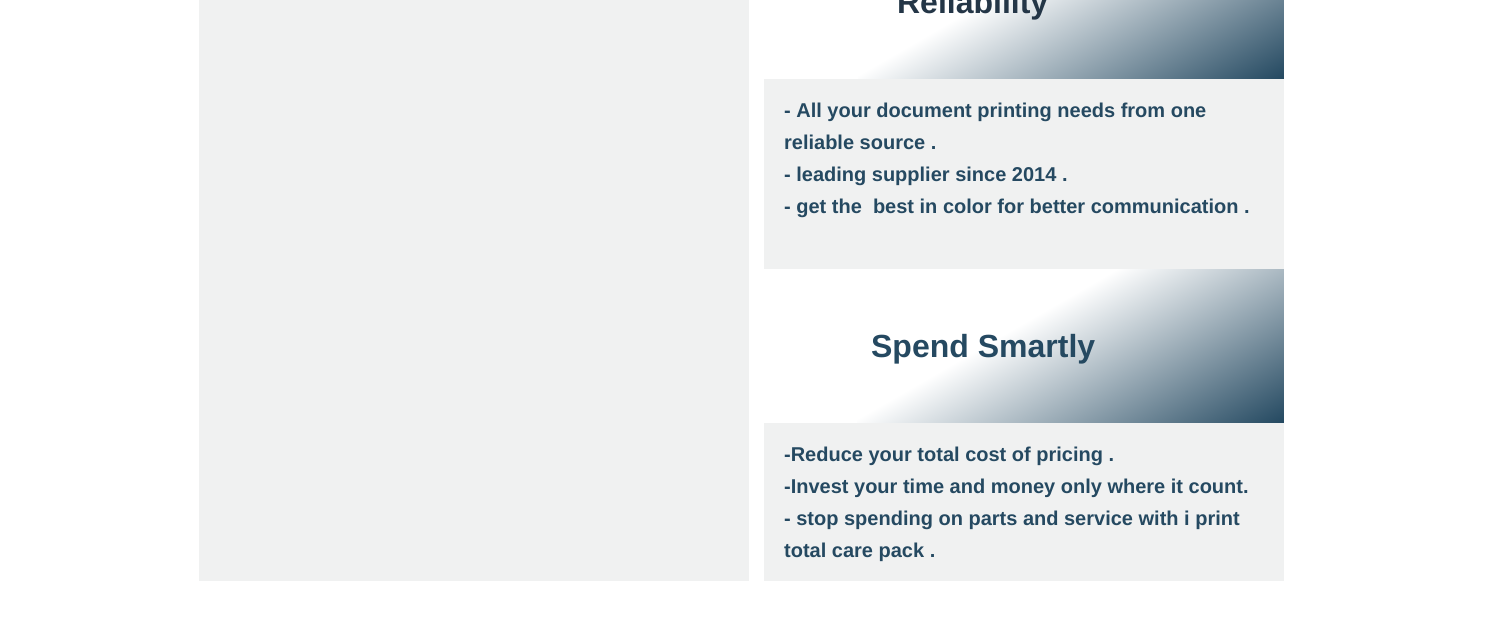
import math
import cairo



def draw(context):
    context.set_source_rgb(1, 1, 1)
    context.paint()
    context.set_source_rgb(240 / 255, 241 / 255, 241 / 255)
    context.rectangle(199, 0, 550, 581)
    context.fill()
    gradient = cairo.LinearGradient(926, -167, 1122, 172)
    gradient.add_color_stop_rgba(0.23, 1, 1, 1, 1)
    gradient.add_color_stop_rgba(0.45, 1, 1, 1, 1)
    gradient.add_color_stop_rgba(1, 36 / 255, 73 / 255, 97 / 255, 1)
    context.set_source(gradient)
    context.rectangle(858, 0, 426, 79)
    context.fill()
    context.set_source_rgb(240 / 255, 241 / 255, 241 / 255)
    context.rectangle(764, 79, 520, 190)
    context.fill()
    gradient = cairo.LinearGradient(926, 176, 1122, 516)
    gradient.add_color_stop_rgba(0.23, 1, 1, 1, 1)
    gradient.add_color_stop_rgba(0.45, 1, 1, 1, 1)
    gradient.add_color_stop_rgba(1, 36 / 255, 73 / 255, 97 / 255, 1)
    context.set_source(gradient)
    context.rectangle(857, 269, 427, 154)
    context.fill()
    context.set_source_rgb(240 / 255, 241 / 255, 241 / 255)
    context.rectangle(764, 423, 520, 158)
    context.fill()
    context.select_font_face("Liberation Sans", cairo.FontSlant.NORMAL, cairo.FontWeight.BOLD)
    context.set_font_size(32)
    context.set_source_rgb(36 / 255, 54 / 255, 71 / 255)
    context.move_to(897, 13)
    context.show_text("Reliability")
    context.set_font_size(20)
    context.set_source_rgb(37 / 255, 73 / 255, 97 / 255)
    context.move_to(784, 117)
    context.show_text("- All your document printing needs from one")
    context.move_to(784, 149)
    context.show_text("reliable source .")
    context.move_to(784, 181)
    context.show_text("- leading supplier since 2014 .")
    context.move_to(784, 213)
    context.show_text("- get the  best in color for better communication .")
    context.set_font_size(32)
    context.move_to(871, 357)
    context.show_text("Spend Smartly")
    context.set_font_size(20)
    context.move_to(784, 461)
    context.show_text("-Reduce your total cost of pricing .")
    context.move_to(784, 493)
    context.show_text("-Invest your time and money only where it count.")
    context.move_to(784, 525)
    context.show_text("- stop spending on parts and service with i print")
    context.move_to(784, 557)
    context.show_text("total care pack .")


surface = cairo.ImageSurface(cairo.Format.RGB24, 1498, 630)
context = cairo.Context(surface)
options = cairo.FontOptions()
options.set_hint_metrics(cairo.HintMetrics.OFF)
options.set_hint_style(cairo.HintStyle.NONE)
context.set_font_options(options)
context.set_miter_limit(4)
draw(context)
surface.write_to_png("out.png")
